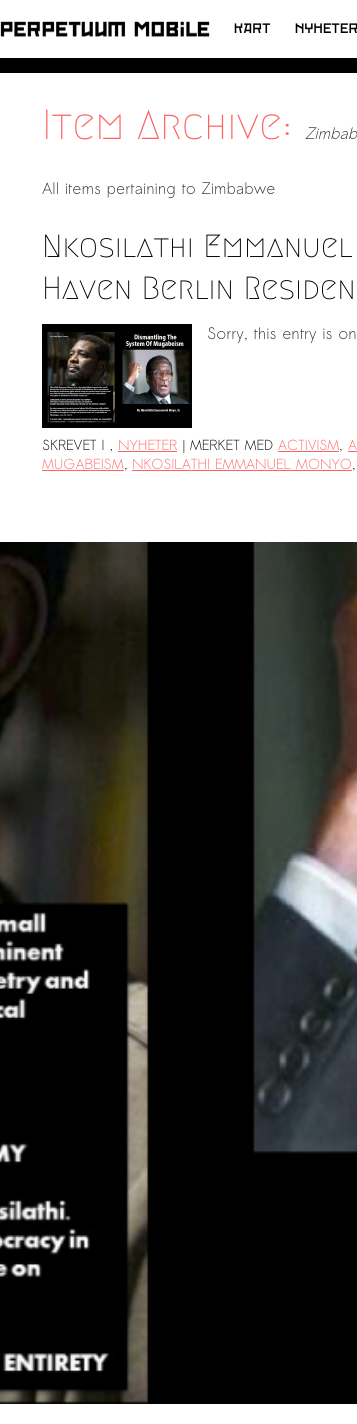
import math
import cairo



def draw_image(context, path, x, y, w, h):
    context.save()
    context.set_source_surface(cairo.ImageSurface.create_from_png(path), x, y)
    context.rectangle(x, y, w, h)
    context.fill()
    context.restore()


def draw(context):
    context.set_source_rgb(1, 1, 1)
    context.paint()
    draw_image(context, "images/1.png", 0, 21, 210, 16)
    draw_image(context, "images/2.png", 0, 58, 357, 1346)
    context.set_source_rgb(1, 1, 1)
    context.rectangle(0, 73, 357, 469)
    context.fill()
    draw_image(context, "images/3.png", 42, 324, 150, 104)
    context.set_source_rgb(1, 98 / 255, 98 / 255)
    context.rectangle(118, 451, 59, 1)
    context.fill()
    context.rectangle(278, 451, 61, 1)
    context.fill()
    context.rectangle(348, 451, 9, 1)
    context.fill()
    context.rectangle(42, 470, 82, 1)
    context.fill()
    context.rectangle(132, 470, 220, 1)
    context.fill()
    context.select_font_face("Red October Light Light")
    context.set_font_size(12)
    context.set_source_rgb(0, 0, 0)
    context.move_to(234, 33)
    context.show_text("KART")
    context.move_to(295, 33)
    context.show_text("NYHETER")
    context.select_font_face("Megrim Medium")
    context.set_font_size(42)
    context.set_source_rgb(1, 98 / 255, 98 / 255)
    context.move_to(42, 139)
    context.show_text("Item Archive:")
    context.select_font_face("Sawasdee", cairo.FontSlant.ITALIC)
    context.set_font_size(16)
    context.set_source_rgb(51 / 255, 51 / 255, 51 / 255)
    context.move_to(305, 139)
    context.show_text("Zimbab")
    context.select_font_face("Sawasdee")
    context.move_to(42, 194)
    context.show_text("All items pertaining to Zimbabwe")
    context.select_font_face("Megrim Medium")
    context.set_font_size(32)
    context.set_source_rgb(0, 0, 0)
    context.move_to(42, 257)
    context.show_text("Nkosilathi Emmanuel")
    context.move_to(42, 299)
    context.show_text("Haven Berlin Residen")
    context.select_font_face("Sawasdee")
    context.set_font_size(16)
    context.set_source_rgb(51 / 255, 51 / 255, 51 / 255)
    context.move_to(207, 339)
    context.show_text("Sorry, this entry is on")
    context.set_font_size(14)
    context.set_source_rgb(0, 0, 0)
    context.move_to(42, 450)
    context.show_text("SKREVET I ,")
    context.set_source_rgb(1, 98 / 255, 98 / 255)
    context.move_to(118, 450)
    context.show_text("NYHETER")
    context.select_font_face("Liberation Sans")
    context.set_source_rgb(119 / 255, 119 / 255, 119 / 255)
    context.move_to(182, 450)
    context.show_text("|")
    context.select_font_face("Sawasdee")
    context.set_source_rgb(0, 0, 0)
    context.move_to(190, 450)
    context.show_text("MERKET MED")
    context.set_source_rgb(1, 98 / 255, 98 / 255)
    context.move_to(278, 450)
    context.show_text("ACTIVISM")
    context.move_to(348, 450)
    context.show_text("A")
    context.set_source_rgb(0, 0, 0)
    context.move_to(339, 450)
    context.show_text(",")
    context.set_source_rgb(1, 98 / 255, 98 / 255)
    context.move_to(42, 469)
    context.show_text("MUGABEISM")
    context.set_source_rgb(0, 0, 0)
    context.move_to(124, 469)
    context.show_text(",")
    context.set_source_rgb(1, 98 / 255, 98 / 255)
    context.move_to(132, 469)
    context.show_text("NKOSILATHI EMMANUEL MONYO")
    context.set_source_rgb(0, 0, 0)
    context.move_to(352, 469)
    context.show_text(",")


surface = cairo.ImageSurface(cairo.Format.RGB24, 357, 1424)
context = cairo.Context(surface)
options = cairo.FontOptions()
options.set_hint_metrics(cairo.HintMetrics.OFF)
options.set_hint_style(cairo.HintStyle.NONE)
context.set_font_options(options)
context.set_miter_limit(4)
draw(context)
surface.write_to_png("out.png")
